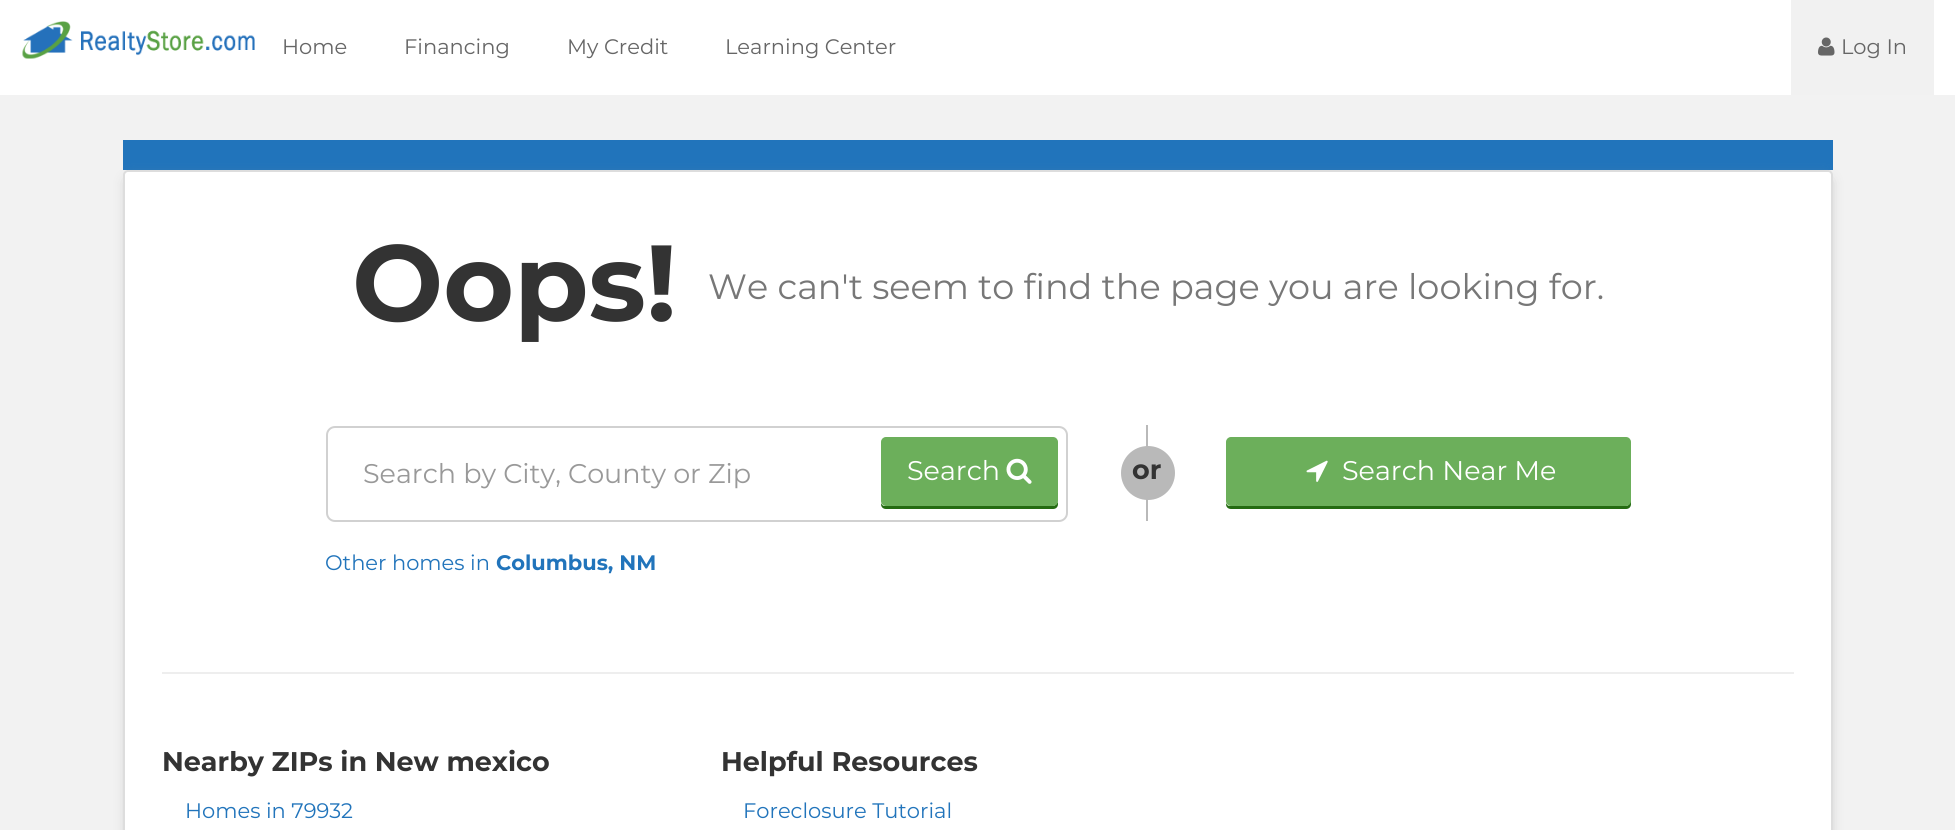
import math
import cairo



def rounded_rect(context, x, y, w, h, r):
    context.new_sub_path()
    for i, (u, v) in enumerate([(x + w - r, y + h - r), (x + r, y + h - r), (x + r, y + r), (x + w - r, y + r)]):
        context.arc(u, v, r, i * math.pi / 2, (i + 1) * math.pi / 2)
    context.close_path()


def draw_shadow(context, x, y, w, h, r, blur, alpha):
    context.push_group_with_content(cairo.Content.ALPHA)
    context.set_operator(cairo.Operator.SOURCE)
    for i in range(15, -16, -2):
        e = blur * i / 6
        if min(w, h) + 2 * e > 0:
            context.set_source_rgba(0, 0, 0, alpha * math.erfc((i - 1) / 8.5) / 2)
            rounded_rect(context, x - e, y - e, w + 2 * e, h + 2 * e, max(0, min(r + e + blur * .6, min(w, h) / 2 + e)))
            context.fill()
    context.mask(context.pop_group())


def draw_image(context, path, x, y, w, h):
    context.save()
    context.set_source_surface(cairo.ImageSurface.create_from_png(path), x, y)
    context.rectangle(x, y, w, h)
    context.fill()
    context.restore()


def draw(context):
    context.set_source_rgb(1, 1, 1)
    context.paint()
    draw_image(context, "images/1.png", 22, 21, 233, 38)
    context.set_source_rgb(241 / 255, 241 / 255, 241 / 255)
    context.rectangle(1791, 0, 143, 95)
    context.fill()
    draw_image(context, "images/2.png", 1818, 37, 17, 19)
    context.set_source_rgb(242 / 255, 242 / 255, 242 / 255)
    context.rectangle(0, 95, 1955, 735)
    context.fill()
    context.set_source_rgb(33 / 255, 116 / 255, 187 / 255)
    context.rectangle(123, 140, 1710, 30)
    context.fill()
    context.set_source_rgb(153 / 255, 153 / 255, 153 / 255)
    draw_shadow(context, 131, 182, 1695, 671, 0, 7.5, 1)
    context.set_source_rgb(1, 1, 1)
    rounded_rect(context, 124, 171, 1708, 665, 4)
    context.fill_preserve()
    context.set_source_rgb(221 / 255, 221 / 255, 221 / 255)
    context.stroke()
    rounded_rect(context, 327, 427, 740, 94, 8)
    context.set_source_rgb(209 / 255, 209 / 255, 209 / 255)
    context.stroke()
    context.set_source_rgb(36 / 255, 107 / 255, 18 / 255)
    context.new_path()
    context.move_to(881, 503)
    context.line_to(881, 504)
    context.curve_to(881, 507, 883, 509, 886, 509)
    context.line_to(1053, 509)
    context.curve_to(1056, 509, 1058, 507, 1058, 504)
    context.line_to(1058, 445)
    context.line_to(1058, 443)
    context.line_to(1058, 501)
    context.curve_to(1058, 503, 1055, 506, 1053, 506)
    context.line_to(885, 506)
    context.curve_to(883, 506, 882, 505, 881, 503)
    context.close_path()
    context.fill()
    context.set_source_rgb(108 / 255, 175 / 255, 91 / 255)
    rounded_rect(context, 882, 438, 175, 67, 4)
    context.fill_preserve()
    context.stroke()
    draw_image(context, "images/3.png", 1006, 458, 26, 26)
    context.set_source_rgb(185 / 255, 185 / 255, 185 / 255)
    context.rectangle(1146, 425, 2, 96)
    context.fill()
    context.arc(1148, 473, 27, 0, 2 * math.pi)
    context.fill()
    context.set_source_rgb(36 / 255, 107 / 255, 18 / 255)
    context.new_path()
    context.move_to(1226, 503)
    context.line_to(1226, 504)
    context.curve_to(1226, 507, 1228, 509, 1231, 509)
    context.line_to(1626, 509)
    context.curve_to(1629, 509, 1631, 507, 1631, 504)
    context.line_to(1631, 445)
    context.line_to(1630, 443)
    context.line_to(1630, 501)
    context.curve_to(1630, 503, 1628, 506, 1626, 506)
    context.line_to(1230, 506)
    context.curve_to(1228, 506, 1227, 505, 1226, 503)
    context.close_path()
    context.fill()
    context.set_source_rgb(108 / 255, 175 / 255, 91 / 255)
    rounded_rect(context, 1227, 438, 403, 67, 4)
    context.fill_preserve()
    context.stroke()
    draw_image(context, "images/4.png", 1306, 460, 22, 22)
    context.set_source_rgb(238 / 255, 238 / 255, 238 / 255)
    context.rectangle(162, 672, 1632, 2)
    context.fill()
    context.select_font_face("Montserrat")
    context.set_font_size(21)
    context.set_source_rgb(102 / 255, 102 / 255, 102 / 255)
    context.move_to(282, 54)
    context.show_text("Home")
    context.move_to(404, 54)
    context.show_text("Financing")
    context.move_to(567, 54)
    context.show_text("My Credit")
    context.move_to(725, 54)
    context.show_text("Learning Center")
    context.move_to(1841, 54)
    context.show_text("Log In")
    context.select_font_face("Montserrat", cairo.FontSlant.NORMAL, cairo.FontWeight.BOLD)
    context.set_font_size(108)
    context.set_source_rgb(51 / 255, 51 / 255, 51 / 255)
    context.move_to(352, 321)
    context.show_text("Oops!")
    context.select_font_face("Montserrat")
    context.set_font_size(35.1)
    context.set_source_rgb(119 / 255, 119 / 255, 119 / 255)
    context.move_to(708, 299)
    context.show_text("We can't seem to find the page you are looking for.")
    context.set_font_size(27)
    context.set_source_rgb(153 / 255, 153 / 255, 153 / 255)
    context.move_to(363, 483)
    context.show_text("Search by City, County or Zip")
    context.set_source_rgb(1, 1, 1)
    context.move_to(907, 480)
    context.show_text("Search")
    context.set_font_size(21)
    context.set_source_rgb(33 / 255, 116 / 255, 187 / 255)
    context.move_to(325, 570)
    context.show_text("Other homes in")
    context.select_font_face("Montserrat", cairo.FontSlant.NORMAL, cairo.FontWeight.BOLD)
    context.move_to(496, 570)
    context.show_text("Columbus, NM")
    context.set_font_size(27)
    context.set_source_rgb(51 / 255, 51 / 255, 51 / 255)
    context.move_to(1132, 479)
    context.show_text("or")
    context.select_font_face("Montserrat")
    context.set_source_rgb(1, 1, 1)
    context.move_to(1342, 480)
    context.show_text("Search Near Me")
    context.select_font_face("Montserrat", cairo.FontSlant.NORMAL, cairo.FontWeight.BOLD)
    context.set_source_rgb(51 / 255, 51 / 255, 51 / 255)
    context.move_to(162, 771)
    context.show_text("Nearby ZIPs in New mexico")
    context.select_font_face("Montserrat")
    context.set_font_size(21)
    context.set_source_rgb(33 / 255, 116 / 255, 187 / 255)
    context.move_to(185, 818)
    context.show_text("Homes in 79932")
    context.select_font_face("Montserrat", cairo.FontSlant.NORMAL, cairo.FontWeight.BOLD)
    context.set_font_size(27)
    context.set_source_rgb(51 / 255, 51 / 255, 51 / 255)
    context.move_to(721, 771)
    context.show_text("Helpful Resources")
    context.select_font_face("Montserrat")
    context.set_font_size(21)
    context.set_source_rgb(33 / 255, 116 / 255, 187 / 255)
    context.move_to(743, 818)
    context.show_text("Foreclosure Tutorial")


surface = cairo.ImageSurface(cairo.Format.RGB24, 1955, 830)
context = cairo.Context(surface)
options = cairo.FontOptions()
options.set_hint_metrics(cairo.HintMetrics.OFF)
options.set_hint_style(cairo.HintStyle.NONE)
context.set_font_options(options)
context.set_miter_limit(4)
draw(context)
surface.write_to_png("out.png")
